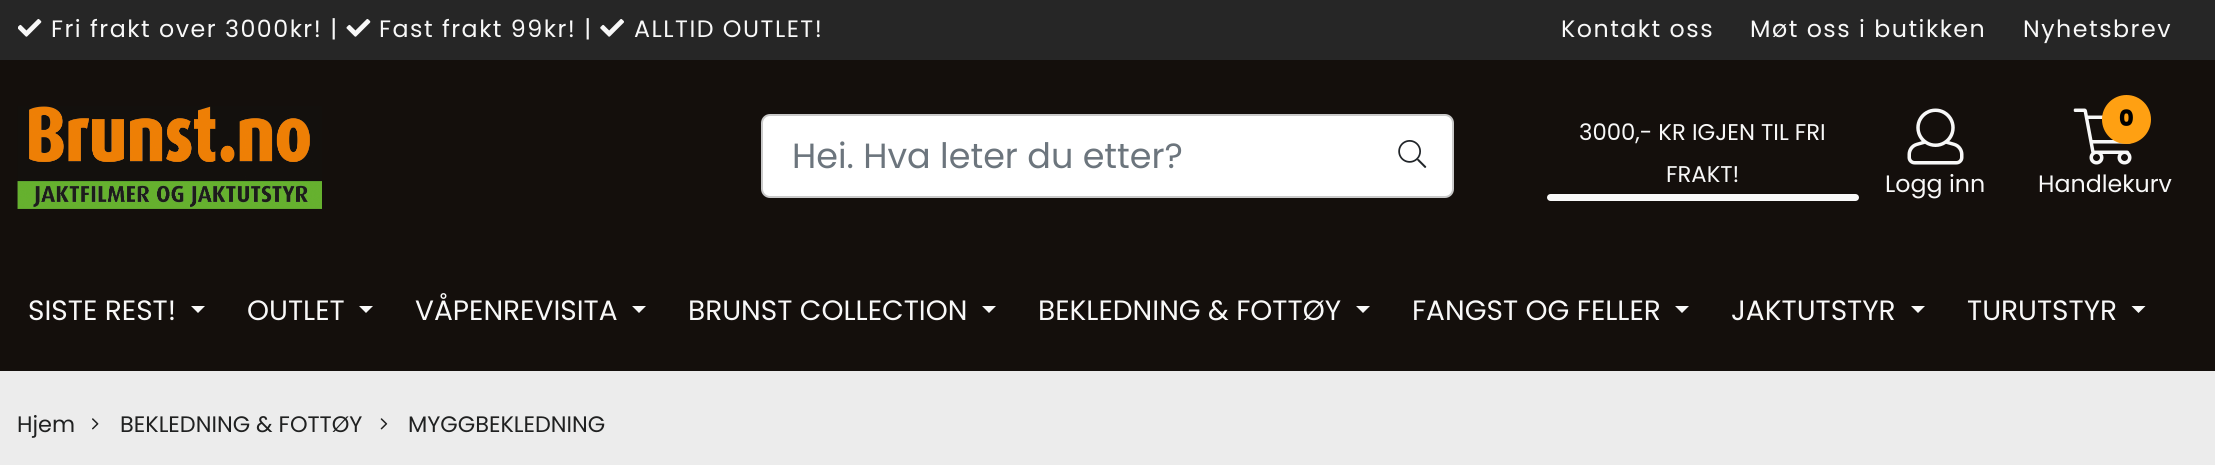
import math
import cairo



def draw_spaced(context, x, y, s, letter, word):
    context.move_to(x, y)
    for ch in s:
        context.show_text(ch)
        context.rel_move_to(letter + word * (ch == ' '), 0)


def rounded_rect(context, x, y, w, h, r):
    context.new_sub_path()
    for i, (u, v) in enumerate([(x + w - r, y + h - r), (x + r, y + h - r), (x + r, y + r), (x + w - r, y + r)]):
        context.arc(u, v, r, i * math.pi / 2, (i + 1) * math.pi / 2)
    context.close_path()


def draw_image(context, path, x, y, w, h):
    context.save()
    context.set_source_surface(cairo.ImageSurface.create_from_png(path), x, y)
    context.rectangle(x, y, w, h)
    context.fill()
    context.restore()


def draw(context):
    context.set_source_rgb(236 / 255, 236 / 255, 236 / 255)
    context.paint()
    context.set_source_rgb(38 / 255, 38 / 255, 38 / 255)
    context.rectangle(0, 0, 2215, 60)
    context.fill()
    draw_image(context, "images/1.png", 18, 19, 24, 18)
    draw_image(context, "images/2.png", 346, 19, 25, 18)
    draw_image(context, "images/3.png", 600, 19, 24, 18)
    context.set_source_rgb(20 / 255, 15 / 255, 12 / 255)
    context.rectangle(0, 60, 2215, 311)
    context.fill()
    draw_image(context, "images/4.png", 17, 106, 305, 103)
    context.set_source_rgb(1, 1, 1)
    rounded_rect(context, 762, 115, 691, 82, 8)
    context.fill_preserve()
    context.set_source_rgb(202 / 255, 202 / 255, 202 / 255)
    context.stroke()
    draw_image(context, "images/5.png", 1398, 140, 29, 28)
    context.set_source_rgb(249 / 255, 249 / 255, 249 / 255)
    rounded_rect(context, 1547, 194, 312, 7, 3.5)
    context.fill()
    draw_image(context, "images/6.png", 2073, 108, 59, 57)
    context.set_source_rgb(1, 160 / 255, 18 / 255)
    context.arc(2126.5, 119.5, 22.5, 0, 2 * math.pi)
    context.fill_preserve()
    context.set_line_width(4)
    context.stroke()
    draw_image(context, "images/7.png", 1907, 108, 57, 57)
    context.set_source_rgb(248 / 255, 248 / 255, 248 / 255)
    context.new_path()
    context.move_to(191, 306)
    context.line_to(205, 306)
    context.line_to(198, 313)
    context.close_path()
    context.fill()
    context.new_path()
    context.move_to(359, 306)
    context.line_to(373, 306)
    context.line_to(366, 313)
    context.close_path()
    context.fill()
    context.new_path()
    context.move_to(632, 306)
    context.line_to(646, 306)
    context.line_to(639, 313)
    context.close_path()
    context.fill()
    context.new_path()
    context.move_to(982, 306)
    context.line_to(996, 306)
    context.line_to(989, 313)
    context.close_path()
    context.fill()
    context.new_path()
    context.move_to(1356, 306)
    context.line_to(1370, 306)
    context.line_to(1363, 313)
    context.close_path()
    context.fill()
    context.new_path()
    context.move_to(1675, 306)
    context.line_to(1689, 306)
    context.line_to(1682, 313)
    context.close_path()
    context.fill()
    context.new_path()
    context.move_to(1911, 306)
    context.line_to(1925, 306)
    context.line_to(1918, 313)
    context.close_path()
    context.fill()
    context.new_path()
    context.move_to(2131.5, 306)
    context.line_to(2145.5, 306)
    context.line_to(2138.5, 313)
    context.close_path()
    context.fill()
    draw_image(context, "images/8.png", 92, 418, 7, 12)
    draw_image(context, "images/9.png", 380, 418, 8, 12)
    context.select_font_face("Poppins")
    context.set_font_size(23.75)
    draw_spaced(context, 51, 37, "Fri frakt over 3000kr! |", 1.5, 0)
    draw_spaced(context, 379, 37, "Fast frakt 99kr! |", 1.5, 0)
    draw_spaced(context, 634, 37, "ALLTID OUTLET!", 1.5, 0)
    draw_spaced(context, 1561, 37, "Kontakt oss", 1.5, 0)
    draw_spaced(context, 1750, 37, "Møt oss i butikken", 1.5, 0)
    draw_spaced(context, 2023, 37, "Nyhetsbrev", 1.5, 0)
    context.set_font_size(35)
    context.set_source_rgb(108 / 255, 117 / 255, 125 / 255)
    context.move_to(792, 168)
    context.show_text("Hei. Hva leter du etter?")
    context.set_font_size(22.75)
    context.set_source_rgb(248 / 255, 248 / 255, 248 / 255)
    context.move_to(1579, 140)
    context.show_text("3000,- KR IGJEN TIL FRI")
    context.move_to(1666, 182)
    context.show_text("FRAKT!")
    context.select_font_face("Poppins ExtraBold")
    context.set_font_size(22.4)
    context.set_source_rgb(0, 0, 0)
    context.move_to(2119, 126)
    context.show_text("0")
    context.select_font_face("Poppins")
    context.set_font_size(23.75)
    context.set_source_rgb(248 / 255, 248 / 255, 248 / 255)
    context.move_to(2038, 192)
    context.show_text("Handlekurv")
    context.move_to(1885, 192)
    context.show_text("Logg inn")
    context.set_font_size(28)
    context.move_to(28, 320)
    context.show_text("SISTE REST!")
    context.move_to(247, 320)
    context.show_text("OUTLET")
    context.move_to(415, 320)
    context.show_text("VÅPENREVISITA")
    context.move_to(688, 320)
    context.show_text("BRUNST COLLECTION")
    context.move_to(1038, 320)
    context.show_text("BEKLEDNING & FOTTØY")
    context.move_to(1412, 320)
    context.show_text("FANGST OG FELLER")
    context.move_to(1731, 320)
    context.show_text("JAKTUTSTYR")
    context.move_to(1967, 320)
    context.show_text("TURUTSTYR")
    context.set_font_size(22.4)
    context.set_source_rgb(32 / 255, 33 / 255, 33 / 255)
    context.move_to(17, 432)
    context.show_text("Hjem")
    context.move_to(120, 432)
    context.show_text("BEKLEDNING & FOTTØY")
    context.move_to(408, 432)
    context.show_text("MYGGBEKLEDNING")


surface = cairo.ImageSurface(cairo.Format.RGB24, 2215, 465)
context = cairo.Context(surface)
options = cairo.FontOptions()
options.set_hint_metrics(cairo.HintMetrics.OFF)
options.set_hint_style(cairo.HintStyle.NONE)
context.set_font_options(options)
context.set_miter_limit(4)
draw(context)
surface.write_to_png("out.png")
